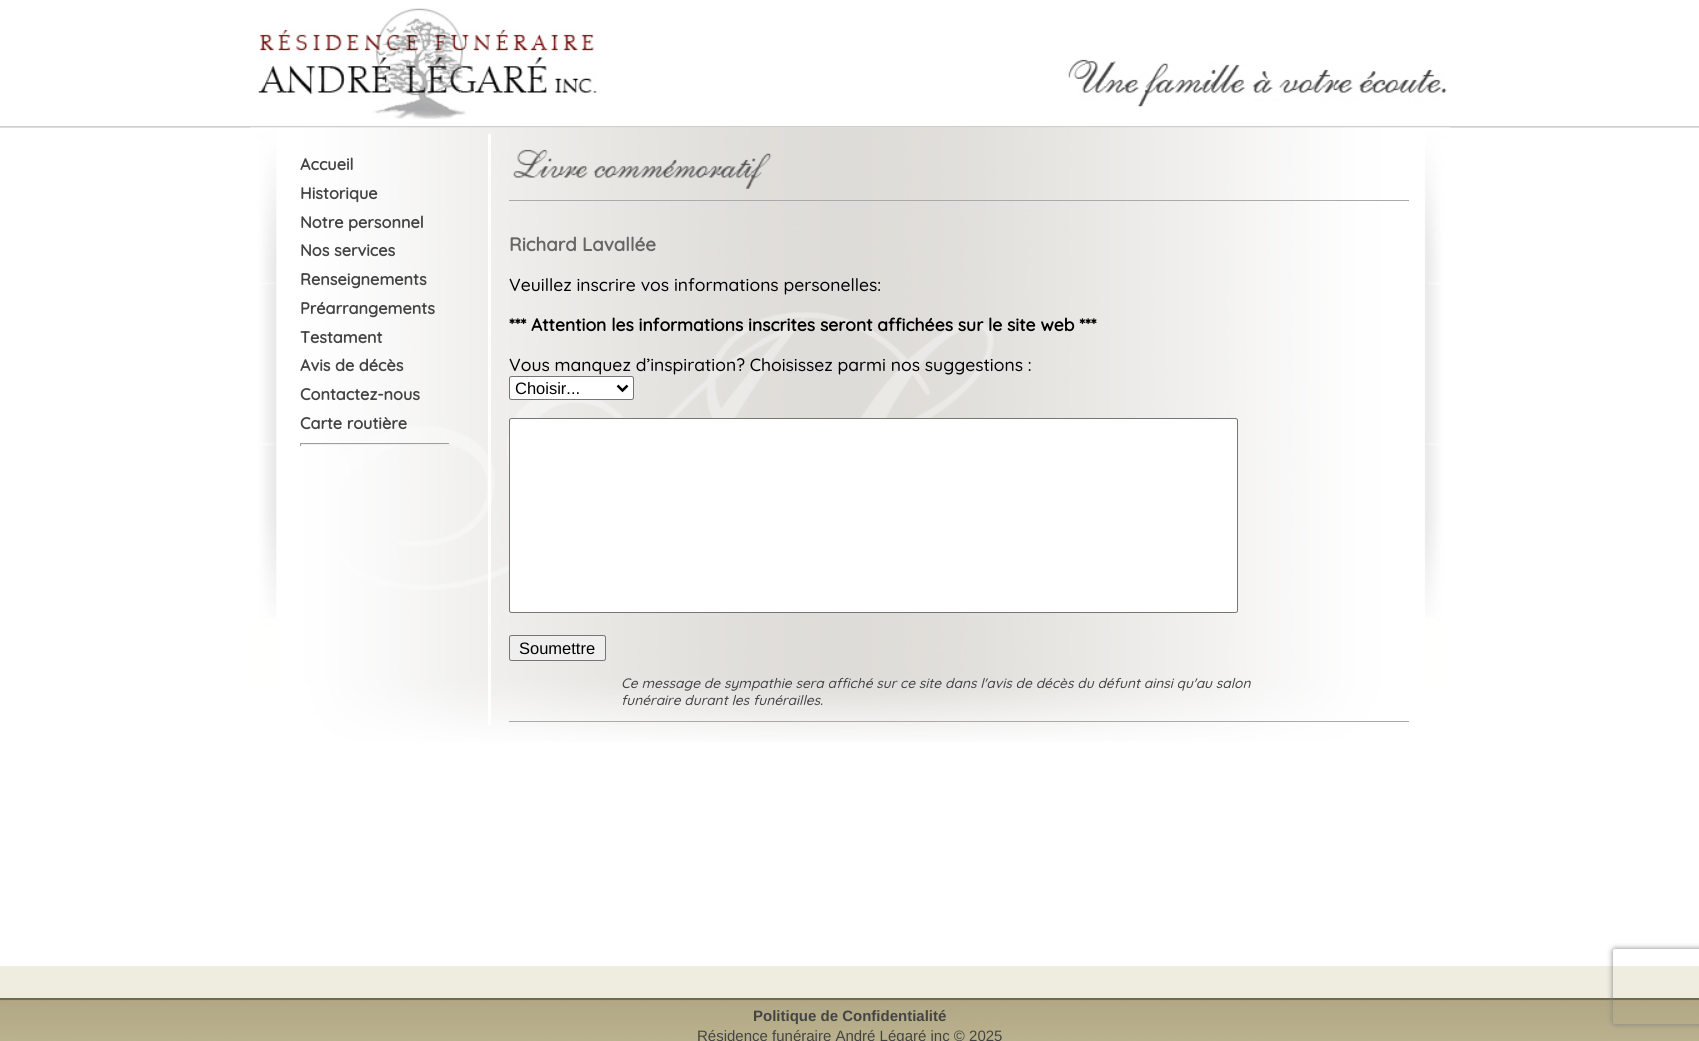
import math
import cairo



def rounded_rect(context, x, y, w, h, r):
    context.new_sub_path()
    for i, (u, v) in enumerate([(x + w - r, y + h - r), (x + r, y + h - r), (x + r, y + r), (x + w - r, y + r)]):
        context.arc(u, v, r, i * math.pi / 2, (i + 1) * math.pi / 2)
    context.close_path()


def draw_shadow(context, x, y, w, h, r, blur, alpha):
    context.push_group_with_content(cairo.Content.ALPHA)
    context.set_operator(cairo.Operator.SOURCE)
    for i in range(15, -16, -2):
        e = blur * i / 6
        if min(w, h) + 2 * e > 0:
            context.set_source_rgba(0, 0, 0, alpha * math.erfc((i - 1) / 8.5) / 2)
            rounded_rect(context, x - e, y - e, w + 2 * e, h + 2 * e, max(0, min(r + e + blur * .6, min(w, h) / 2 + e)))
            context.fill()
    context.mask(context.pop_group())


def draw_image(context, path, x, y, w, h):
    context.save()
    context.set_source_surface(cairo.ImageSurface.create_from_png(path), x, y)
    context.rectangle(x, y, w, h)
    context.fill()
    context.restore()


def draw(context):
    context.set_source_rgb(1, 1, 1)
    context.paint()
    draw_image(context, "images/1.png", 0, 126, 1699, 2)
    draw_image(context, "images/2.png", 258, 8, 339, 111)
    draw_image(context, "images/3.png", 1068, 59, 379, 48)
    draw_image(context, "images/4.png", 250, 127, 1200, 615)
    context.set_source_rgb(159 / 255, 159 / 255, 159 / 255)
    context.rectangle(300, 443, 150, 1)
    context.fill()
    context.set_source_rgb(238 / 255, 238 / 255, 238 / 255)
    context.rectangle(449, 443, 1, 3)
    context.fill()
    context.rectangle(300, 444, 150, 1)
    context.fill()
    context.set_source_rgb(159 / 255, 159 / 255, 159 / 255)
    context.rectangle(300, 443, 1, 3)
    context.fill()
    context.set_source_rgb(1, 1, 1)
    context.rectangle(488, 134, 3, 591)
    context.fill()
    draw_image(context, "images/5.png", 513, 149, 259, 40)
    context.set_source_rgb(170 / 255, 170 / 255, 170 / 255)
    context.rectangle(509, 200, 900, 1)
    context.fill()
    context.set_source_rgb(1, 1, 1)
    rounded_rect(context, 509.5, 376.5, 124, 23, 2)
    context.fill_preserve()
    context.set_source_rgb(118 / 255, 118 / 255, 118 / 255)
    context.set_line_width(1)
    context.stroke()
    context.new_path()
    context.move_to(617.5, 385.5)
    context.line_to(622.5, 390.5)
    context.line_to(627.5, 385.5)
    context.set_source_rgb(0, 0, 0)
    context.set_line_width(2.5)
    context.stroke()
    context.set_source_rgb(1, 1, 1)
    rounded_rect(context, 509.5, 418.5, 728, 194, 2)
    context.fill_preserve()
    context.set_source_rgb(118 / 255, 118 / 255, 118 / 255)
    context.set_line_width(1)
    context.stroke()
    context.set_source_rgb(239 / 255, 239 / 255, 239 / 255)
    rounded_rect(context, 509.5, 635.5, 96, 25, 2)
    context.fill_preserve()
    context.set_source_rgb(118 / 255, 118 / 255, 118 / 255)
    context.stroke()
    context.set_source_rgb(170 / 255, 170 / 255, 170 / 255)
    context.rectangle(509, 721, 900, 1)
    context.fill()
    draw_image(context, "images/6.png", 0, 998, 1699, 43)
    context.set_source_rgb(239 / 255, 236 / 255, 224 / 255)
    context.rectangle(0, 966, 1699, 32)
    context.fill()
    context.save()
    context.set_fill_rule(cairo.FillRule.EVEN_ODD)
    context.new_path()
    context.move_to(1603, 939)
    context.line_to(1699, 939)
    context.line_to(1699, 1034)
    context.line_to(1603, 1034)
    context.close_path()
    context.move_to(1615.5, 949)
    context.line_to(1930.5, 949)
    context.curve_to(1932, 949, 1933, 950, 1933, 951.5)
    context.line_to(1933, 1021.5)
    context.curve_to(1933, 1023, 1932, 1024, 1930.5, 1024)
    context.line_to(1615.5, 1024)
    context.curve_to(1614, 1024, 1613, 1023, 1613, 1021.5)
    context.line_to(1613, 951.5)
    context.curve_to(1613, 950, 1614, 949, 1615.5, 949)
    context.close_path()
    context.clip()
    context.set_source_rgb(128 / 255, 128 / 255, 128 / 255)
    draw_shadow(context, 1613, 949, 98, 75, 2.5, 3, 1)
    context.restore()
    context.select_font_face("Quicksand", cairo.FontSlant.NORMAL, cairo.FontWeight.BOLD)
    context.set_font_size(16.25)
    context.set_source_rgb(68 / 255, 68 / 255, 68 / 255)
    context.move_to(300, 170)
    context.show_text("Accueil")
    context.move_to(300, 199)
    context.show_text("Historique")
    context.move_to(300, 228)
    context.show_text("Notre personnel")
    context.move_to(300, 256)
    context.show_text("Nos services")
    context.move_to(300, 285)
    context.show_text("Renseignements")
    context.move_to(300, 314)
    context.show_text("Préarrangements")
    context.move_to(300, 343)
    context.show_text("Testament")
    context.move_to(300, 371)
    context.show_text("Avis de décès")
    context.move_to(300, 400)
    context.show_text("Contactez-nous")
    context.move_to(300, 429)
    context.show_text("Carte routière")
    context.set_font_size(18.75)
    context.set_source_rgb(102 / 255, 102 / 255, 102 / 255)
    context.move_to(509, 251)
    context.show_text("Richard Lavallée")
    context.select_font_face("Quicksand Light")
    context.set_font_size(17.5)
    context.set_source_rgb(0, 0, 0)
    context.move_to(509, 291)
    context.show_text("Veuillez inscrire vos informations personelles:")
    context.select_font_face("Quicksand", cairo.FontSlant.NORMAL, cairo.FontWeight.BOLD)
    context.move_to(509, 331)
    context.show_text("*** Attention les informations inscrites seront affichées sur le site web ***")
    context.select_font_face("Quicksand Light")
    context.move_to(509, 371)
    context.show_text("Vous manquez d’inspiration? Choisissez parmi nos suggestions :")
    context.select_font_face("Liberation Sans")
    context.set_font_size(16.5)
    context.move_to(515, 394)
    context.show_text("Choisir...")
    context.move_to(519, 654)
    context.show_text("Soumettre")
    context.select_font_face("Quicksand Light", cairo.FontSlant.ITALIC)
    context.set_font_size(13.75)
    context.set_source_rgb(68 / 255, 68 / 255, 68 / 255)
    context.move_to(621, 688)
    context.show_text("Ce message de sympathie sera affiché sur ce site dans l'avis de décès du défunt ainsi qu'au salon")
    context.move_to(621, 705)
    context.show_text("funéraire durant les funérailles.")
    context.select_font_face("Liberation Sans", cairo.FontSlant.NORMAL, cairo.FontWeight.BOLD)
    context.set_font_size(15)
    context.move_to(753, 1021)
    context.show_text("Politique de Confidentialité")
    context.select_font_face("Liberation Sans")
    context.move_to(697, 1041)
    context.show_text("Résidence funéraire André Légaré inc © 2025")


surface = cairo.ImageSurface(cairo.Format.RGB24, 1699, 1041)
context = cairo.Context(surface)
options = cairo.FontOptions()
options.set_hint_metrics(cairo.HintMetrics.OFF)
options.set_hint_style(cairo.HintStyle.NONE)
context.set_font_options(options)
context.set_miter_limit(4)
draw(context)
surface.write_to_png("out.png")
